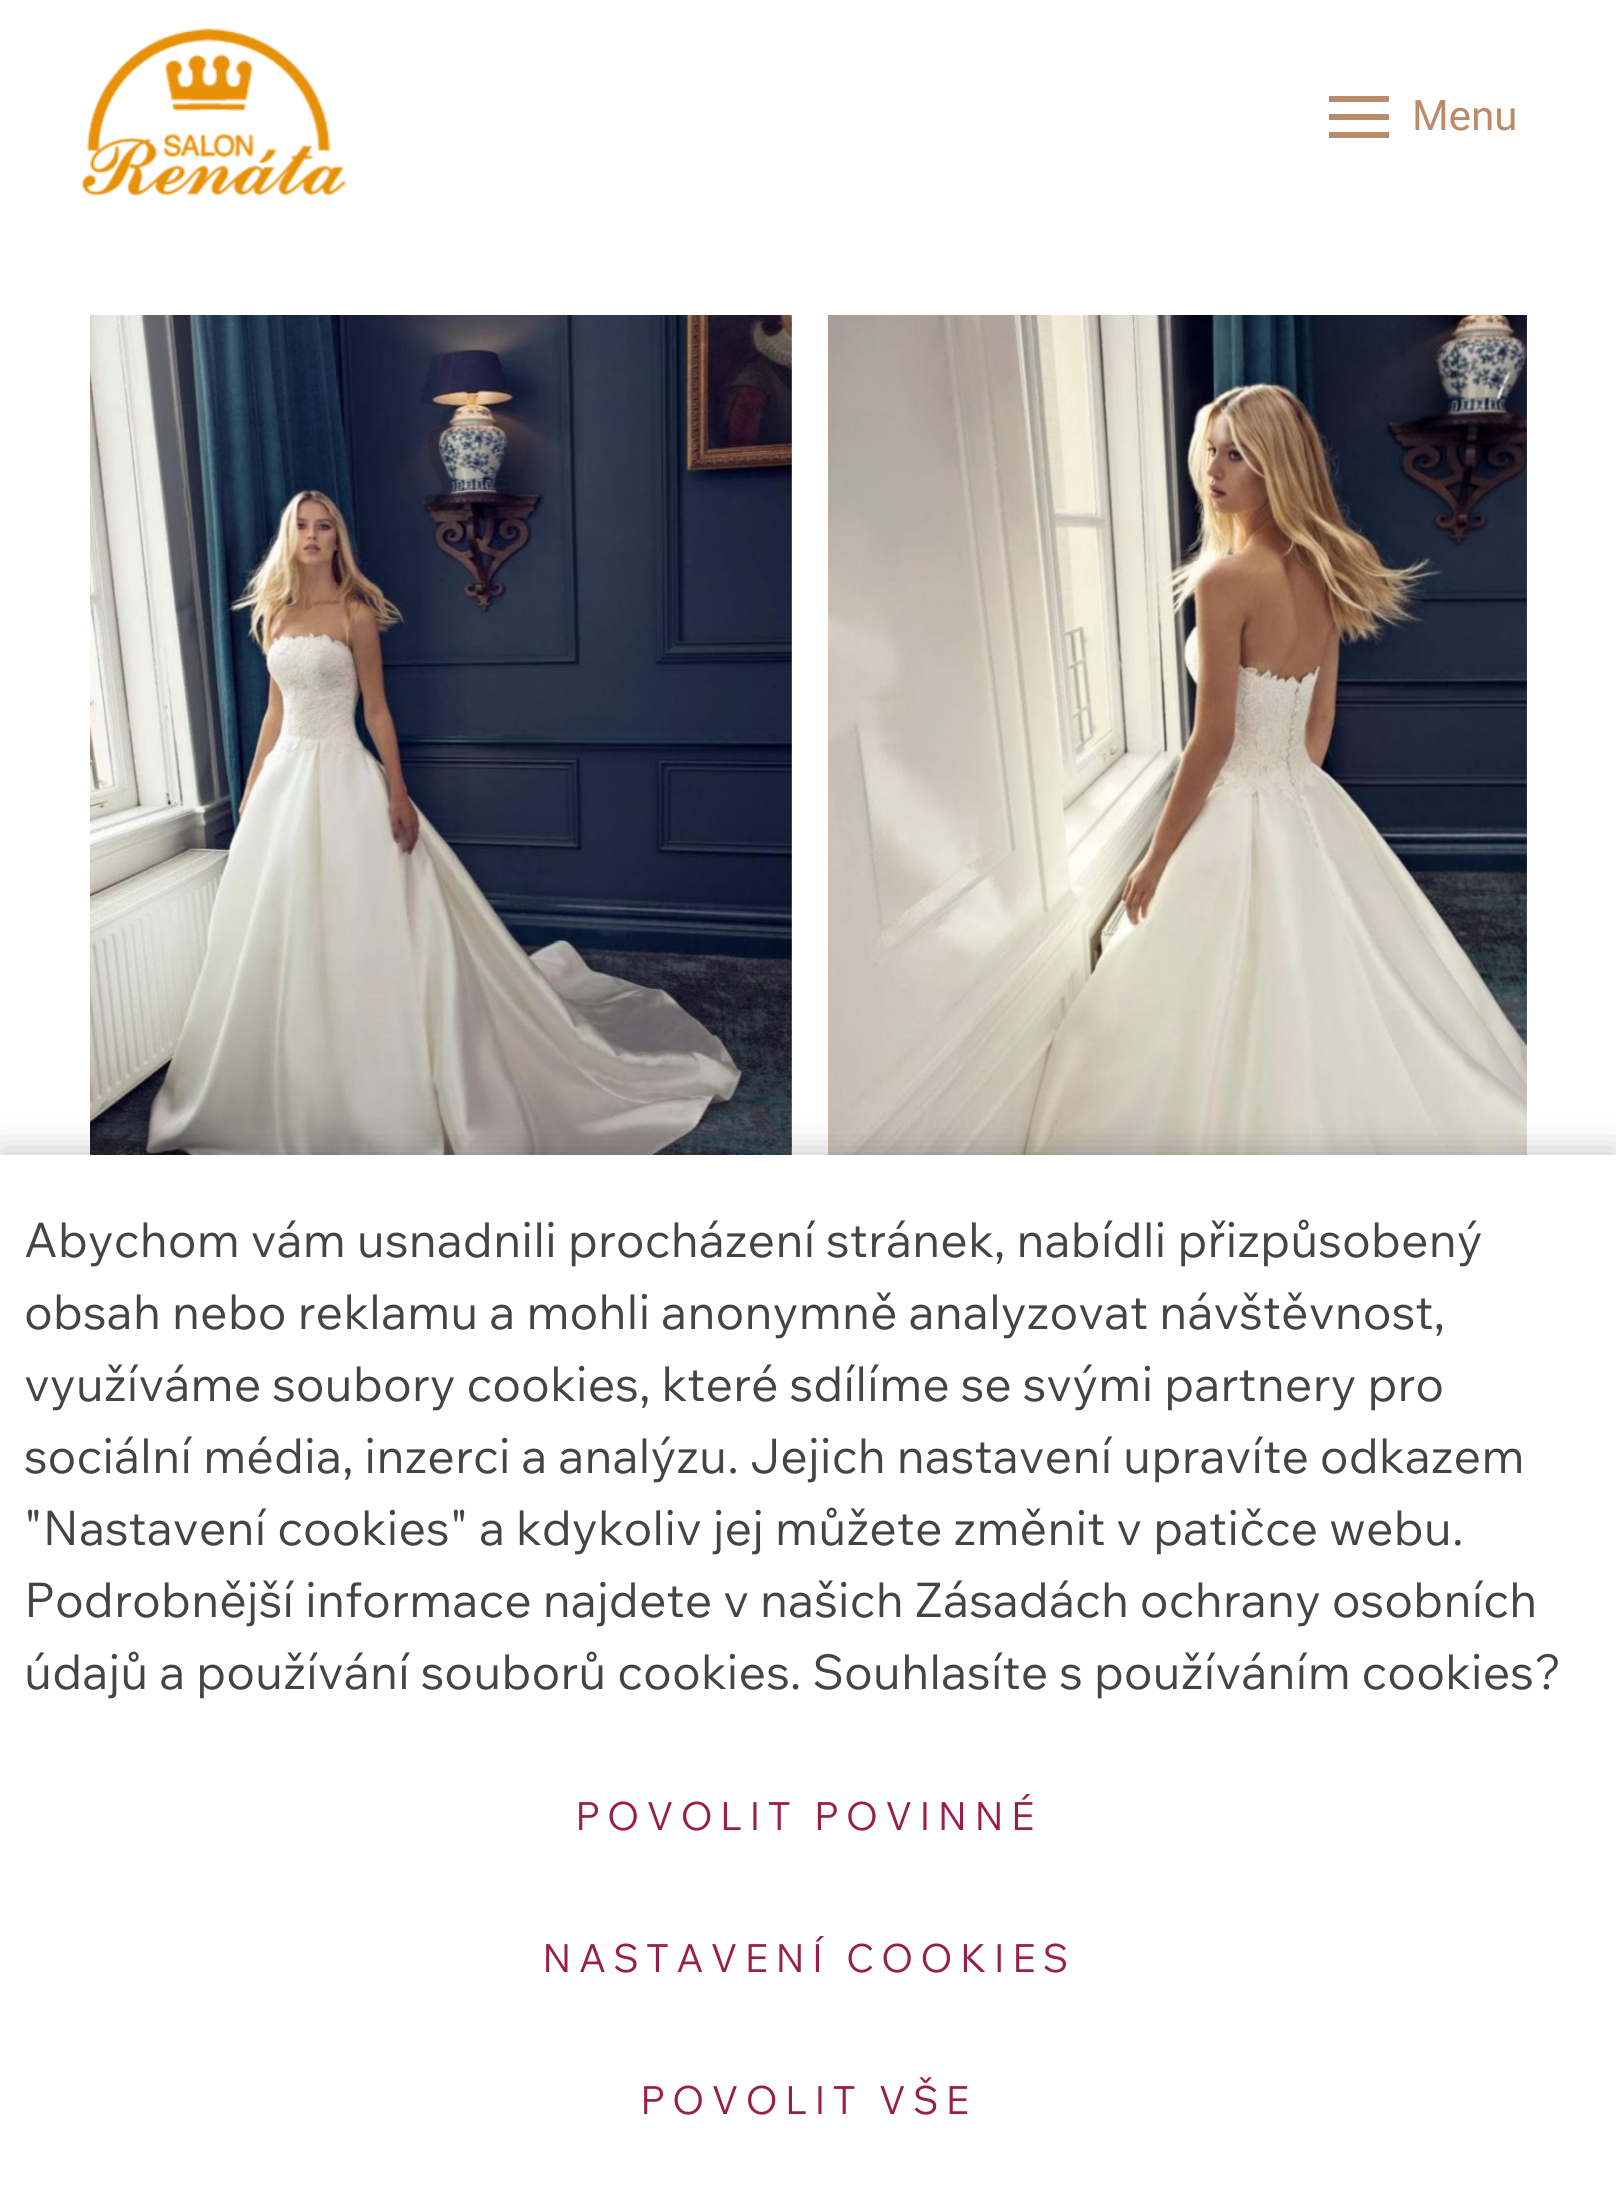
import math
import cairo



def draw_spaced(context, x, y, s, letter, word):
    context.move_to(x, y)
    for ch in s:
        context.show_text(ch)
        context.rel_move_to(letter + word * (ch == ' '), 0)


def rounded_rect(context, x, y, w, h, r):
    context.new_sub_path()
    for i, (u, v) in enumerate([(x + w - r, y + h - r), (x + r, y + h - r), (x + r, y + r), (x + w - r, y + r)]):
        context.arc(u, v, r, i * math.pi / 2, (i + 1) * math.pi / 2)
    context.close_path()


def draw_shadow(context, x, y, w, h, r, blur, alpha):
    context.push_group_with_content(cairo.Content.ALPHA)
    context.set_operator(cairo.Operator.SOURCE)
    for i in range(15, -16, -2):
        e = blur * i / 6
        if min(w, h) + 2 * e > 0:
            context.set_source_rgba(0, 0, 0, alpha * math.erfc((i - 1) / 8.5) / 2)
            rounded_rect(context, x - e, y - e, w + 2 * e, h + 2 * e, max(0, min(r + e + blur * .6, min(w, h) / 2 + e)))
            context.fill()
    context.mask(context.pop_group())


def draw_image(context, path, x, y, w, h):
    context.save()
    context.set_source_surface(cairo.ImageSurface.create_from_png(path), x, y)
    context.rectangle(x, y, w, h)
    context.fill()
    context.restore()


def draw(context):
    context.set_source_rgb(1, 1, 1)
    context.paint()
    draw_image(context, "images/1.png", 82, 28, 265, 168)
    context.set_source_rgb(186 / 255, 139 / 255, 105 / 255)
    context.rectangle(1329, 96, 60, 6)
    context.fill()
    context.rectangle(1329, 114, 60, 6)
    context.fill()
    context.rectangle(1329, 132, 60, 6)
    context.fill()
    draw_image(context, "images/2.png", 90, 315, 702, 840)
    draw_image(context, "images/3.png", 828, 315, 699, 840)
    context.set_source_rgb(0, 0, 0)
    draw_shadow(context, 0, 1155, 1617, 1056, 0, 18, 0.25)
    context.set_source_rgb(1, 1, 1)
    context.rectangle(0, 1155, 1616, 1056)
    context.fill()
    context.select_font_face("Roboto Flex")
    context.set_font_size(42)
    context.set_source_rgb(186 / 255, 139 / 255, 105 / 255)
    context.move_to(1412, 130)
    context.show_text("Menu")
    context.select_font_face("Wix Madefor Text")
    context.set_font_size(48)
    context.set_source_rgb(68 / 255, 68 / 255, 68 / 255)
    context.move_to(24, 1257)
    context.show_text("Abychom vám usnadnili procházení stránek, nabídli přizpůsobený")
    context.move_to(24, 1329)
    context.show_text("obsah nebo reklamu a mohli anonymně analyzovat návštěvnost,")
    context.move_to(24, 1401)
    context.show_text("využíváme soubory cookies, které sdílíme se svými partnery pro")
    context.move_to(24, 1473)
    context.show_text("sociální média, inzerci a analýzu. Jejich nastavení upravíte odkazem")
    context.move_to(24, 1545)
    context.show_text("\"Nastavení cookies\" a kdykoliv jej můžete změnit v patičce webu.")
    context.move_to(24, 1617)
    context.show_text("Podrobnější informace najdete v našich Zásadách ochrany osobních")
    context.move_to(24, 1689)
    context.show_text("údajů a používání souborů cookies. Souhlasíte s používáním cookies?")
    context.set_font_size(39)
    context.set_source_rgb(153 / 255, 31 / 255, 71 / 255)
    draw_spaced(context, 575, 1830, "POVOLIT POVINNÉ", 7, 0)
    draw_spaced(context, 542, 1972, "NASTAVENÍ COOKIES", 7, 0)
    draw_spaced(context, 640, 2114, "POVOLIT VŠE", 7, 0)


surface = cairo.ImageSurface(cairo.Format.RGB24, 1616, 2211)
context = cairo.Context(surface)
options = cairo.FontOptions()
options.set_hint_metrics(cairo.HintMetrics.OFF)
options.set_hint_style(cairo.HintStyle.NONE)
context.set_font_options(options)
context.set_miter_limit(4)
draw(context)
surface.write_to_png("out.png")
